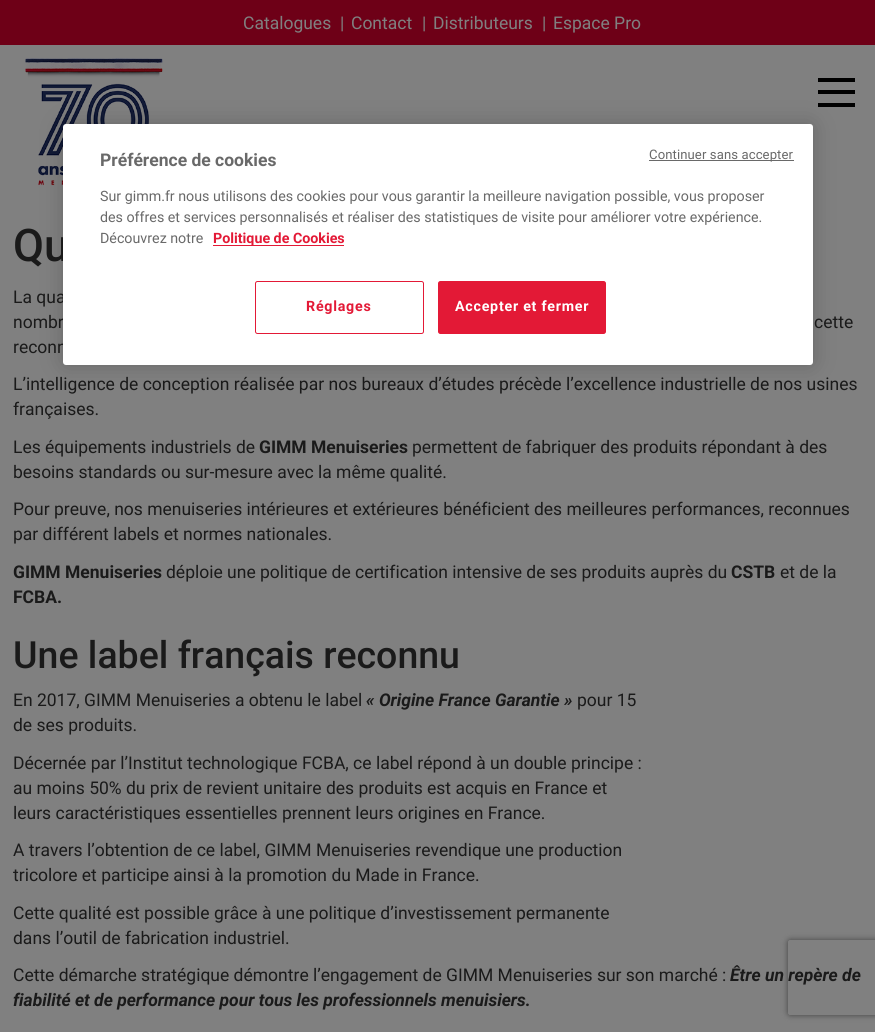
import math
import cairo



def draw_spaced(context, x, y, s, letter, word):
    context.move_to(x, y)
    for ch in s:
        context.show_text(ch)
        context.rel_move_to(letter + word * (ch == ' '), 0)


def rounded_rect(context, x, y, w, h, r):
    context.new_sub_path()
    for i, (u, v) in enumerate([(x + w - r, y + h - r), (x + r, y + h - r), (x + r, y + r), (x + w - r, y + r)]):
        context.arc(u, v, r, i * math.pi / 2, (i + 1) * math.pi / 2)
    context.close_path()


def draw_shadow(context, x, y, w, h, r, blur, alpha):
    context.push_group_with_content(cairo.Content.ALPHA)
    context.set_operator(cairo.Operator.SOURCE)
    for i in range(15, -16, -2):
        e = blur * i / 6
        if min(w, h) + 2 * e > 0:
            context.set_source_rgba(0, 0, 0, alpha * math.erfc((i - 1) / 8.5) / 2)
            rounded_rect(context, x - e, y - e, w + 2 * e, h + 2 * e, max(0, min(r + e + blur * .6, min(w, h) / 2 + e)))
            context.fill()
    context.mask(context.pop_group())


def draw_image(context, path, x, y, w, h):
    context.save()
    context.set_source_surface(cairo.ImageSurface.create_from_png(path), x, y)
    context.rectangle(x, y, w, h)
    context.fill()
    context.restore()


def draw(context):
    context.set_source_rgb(128 / 255, 128 / 255, 128 / 255)
    context.paint()
    context.set_source_rgb(110 / 255, 0, 23 / 255)
    context.rectangle(0, 0, 875, 45)
    context.fill()
    draw_image(context, "images/1.png", 25, 58, 138, 128)
    context.set_source_rgb(0, 0, 0)
    context.rectangle(818, 103, 37, 4)
    context.fill()
    context.rectangle(818, 78, 37, 4)
    context.fill()
    context.rectangle(818, 90, 37, 4)
    context.fill()
    context.set_source_rgb(0, 0, 0)
    draw_shadow(context, 63, 124, 750, 241, 3, 11, 0.2)
    context.save()
    context.set_fill_rule(cairo.FillRule.EVEN_ODD)
    context.new_path()
    context.move_to(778, 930)
    context.line_to(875, 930)
    context.line_to(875, 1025)
    context.line_to(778, 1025)
    context.close_path()
    context.move_to(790.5, 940)
    context.line_to(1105.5, 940)
    context.curve_to(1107, 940, 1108, 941, 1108, 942.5)
    context.line_to(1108, 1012.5)
    context.curve_to(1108, 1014, 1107, 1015, 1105.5, 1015)
    context.line_to(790.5, 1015)
    context.curve_to(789, 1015, 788, 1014, 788, 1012.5)
    context.line_to(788, 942.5)
    context.curve_to(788, 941, 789, 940, 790.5, 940)
    context.close_path()
    context.clip()
    context.set_source_rgb(64 / 255, 64 / 255, 64 / 255)
    draw_shadow(context, 788, 940, 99, 75, 2.5, 3, 1)
    context.restore()
    context.select_font_face("Roboto")
    context.set_font_size(17.5)
    context.set_source_rgb(128 / 255, 128 / 255, 128 / 255)
    context.move_to(243, 29)
    context.show_text("Catalogues")
    context.move_to(340, 29)
    context.show_text("|")
    context.move_to(351, 29)
    context.show_text("Contact")
    context.move_to(422, 29)
    context.show_text("|")
    context.move_to(433, 29)
    context.show_text("Distributeurs")
    context.move_to(542, 29)
    context.show_text("|")
    context.move_to(553, 29)
    context.show_text("Espace Pro")
    context.select_font_face("Roboto Medium")
    context.set_font_size(45)
    context.set_source_rgb(26 / 255, 26 / 255, 26 / 255)
    context.move_to(13, 261)
    context.show_text("Qu")
    context.select_font_face("Roboto")
    context.set_font_size(17.5)
    context.move_to(13, 303)
    context.show_text("La qua")
    context.move_to(13, 328)
    context.show_text("nombr")
    context.move_to(814, 328)
    context.show_text("cette")
    context.move_to(13, 353)
    context.show_text("reconn")
    context.move_to(13, 390)
    context.show_text("L’intelligence de conception réalisée par nos bureaux d’études précède l’excellence industrielle de nos usines")
    context.move_to(13, 415)
    context.show_text("françaises.")
    context.move_to(13, 453)
    context.show_text("Les équipements industriels de")
    context.select_font_face("Roboto", cairo.FontSlant.NORMAL, cairo.FontWeight.BOLD)
    context.move_to(259, 453)
    context.show_text("GIMM Menuiseries")
    context.select_font_face("Roboto")
    context.move_to(412, 453)
    context.show_text("permettent de fabriquer des produits répondant à des")
    context.move_to(13, 478)
    context.show_text("besoins standards ou sur-mesure avec la même qualité.")
    context.move_to(13, 515)
    context.show_text("Pour preuve, nos menuiseries intérieures et extérieures bénéficient des meilleures performances, reconnues")
    context.move_to(13, 540)
    context.show_text("par différent labels et normes nationales.")
    context.select_font_face("Roboto", cairo.FontSlant.NORMAL, cairo.FontWeight.BOLD)
    context.move_to(13, 578)
    context.show_text("GIMM Menuiseries")
    context.select_font_face("Roboto")
    context.move_to(166, 578)
    context.show_text("déploie une politique de certification intensive de ses produits auprès du")
    context.select_font_face("Roboto", cairo.FontSlant.NORMAL, cairo.FontWeight.BOLD)
    context.move_to(731, 578)
    context.show_text("CSTB")
    context.select_font_face("Roboto")
    context.move_to(780, 578)
    context.show_text("et de la")
    context.select_font_face("Roboto", cairo.FontSlant.NORMAL, cairo.FontWeight.BOLD)
    context.move_to(13, 603)
    context.show_text("FCBA.")
    context.select_font_face("Roboto Medium")
    context.set_font_size(37.5)
    context.move_to(13, 668)
    context.show_text("Une label français reconnu")
    context.select_font_face("Roboto")
    context.set_font_size(17.5)
    context.move_to(13, 706)
    context.show_text("En 2017, GIMM Menuiseries a obtenu le label")
    context.select_font_face("Roboto", cairo.FontSlant.ITALIC, cairo.FontWeight.BOLD)
    context.move_to(366, 706)
    context.show_text("« Origine France Garantie »")
    context.select_font_face("Roboto")
    context.move_to(577, 706)
    context.show_text("pour 15")
    context.move_to(13, 731)
    context.show_text("de ses produits.")
    context.move_to(13, 769)
    context.show_text("Décernée par l’Institut technologique FCBA, ce label répond à un double principe :")
    context.move_to(13, 794)
    context.show_text("au moins 50% du prix de revient unitaire des produits est acquis en France et")
    context.move_to(13, 819)
    context.show_text("leurs caractéristiques essentielles prennent leurs origines en France.")
    context.move_to(13, 856)
    context.show_text("A travers l’obtention de ce label, GIMM Menuiseries revendique une production")
    context.move_to(13, 881)
    context.show_text("tricolore et participe ainsi à la promotion du Made in France.")
    context.move_to(13, 919)
    context.show_text("Cette qualité est possible grâce à une politique d’investissement permanente")
    context.move_to(13, 944)
    context.show_text("dans l’outil de fabrication industriel.")
    context.move_to(13, 981)
    context.show_text("Cette démarche stratégique démontre l’engagement de GIMM Menuiseries sur son marché :")
    context.select_font_face("Roboto", cairo.FontSlant.ITALIC, cairo.FontWeight.BOLD)
    context.move_to(730, 981)
    context.show_text("Être un repère de")
    context.move_to(13, 1006)
    context.show_text("fiabilité et de performance pour tous les professionnels menuisiers.")
    context.set_source_rgb(1, 1, 1)
    rounded_rect(context, 63, 124, 750, 241, 3)
    context.fill()
    context.set_source_rgb(105 / 255, 105 / 255, 105 / 255)
    context.rectangle(649, 160, 145, 1)
    context.fill()
    context.select_font_face("Roboto")
    context.set_font_size(13.1)
    draw_spaced(context, 649, 159, "Continuer sans accepter", 0.1, 0)
    context.select_font_face("Roboto", cairo.FontSlant.NORMAL, cairo.FontWeight.BOLD)
    context.set_font_size(17.5)
    context.move_to(100, 166)
    context.show_text("Préférence de cookies")
    context.select_font_face("Roboto")
    context.set_font_size(14.25)
    context.move_to(100, 201)
    context.show_text("Sur gimm.fr nous utilisons des cookies pour vous garantir la meilleure navigation possible, vous proposer")
    context.move_to(100, 222)
    context.show_text("des offres et services personnalisés et réaliser des statistiques de visite pour améliorer votre expérience.")
    context.move_to(100, 243)
    context.show_text("Découvrez notre")
    context.set_source_rgb(227 / 255, 25 / 255, 54 / 255)
    context.rectangle(213, 245, 131, 1)
    context.fill()
    context.select_font_face("Roboto", cairo.FontSlant.NORMAL, cairo.FontWeight.BOLD)
    context.move_to(213, 243)
    context.show_text("Politique de Cookies")
    rounded_rect(context, 255.5, 281.5, 168, 52, 2)
    context.set_line_width(1)
    context.stroke()
    draw_spaced(context, 306, 311, "Réglages", 0.75, 0)
    rounded_rect(context, 438.5, 281.5, 167, 52, 2)
    context.fill_preserve()
    context.stroke()
    context.set_source_rgb(1, 1, 1)
    draw_spaced(context, 455, 311, "Accepter et fermer", 0.75, 0)


surface = cairo.ImageSurface(cairo.Format.RGB24, 875, 1032)
context = cairo.Context(surface)
options = cairo.FontOptions()
options.set_hint_metrics(cairo.HintMetrics.OFF)
options.set_hint_style(cairo.HintStyle.NONE)
context.set_font_options(options)
context.set_miter_limit(4)
draw(context)
surface.write_to_png("out.png")
